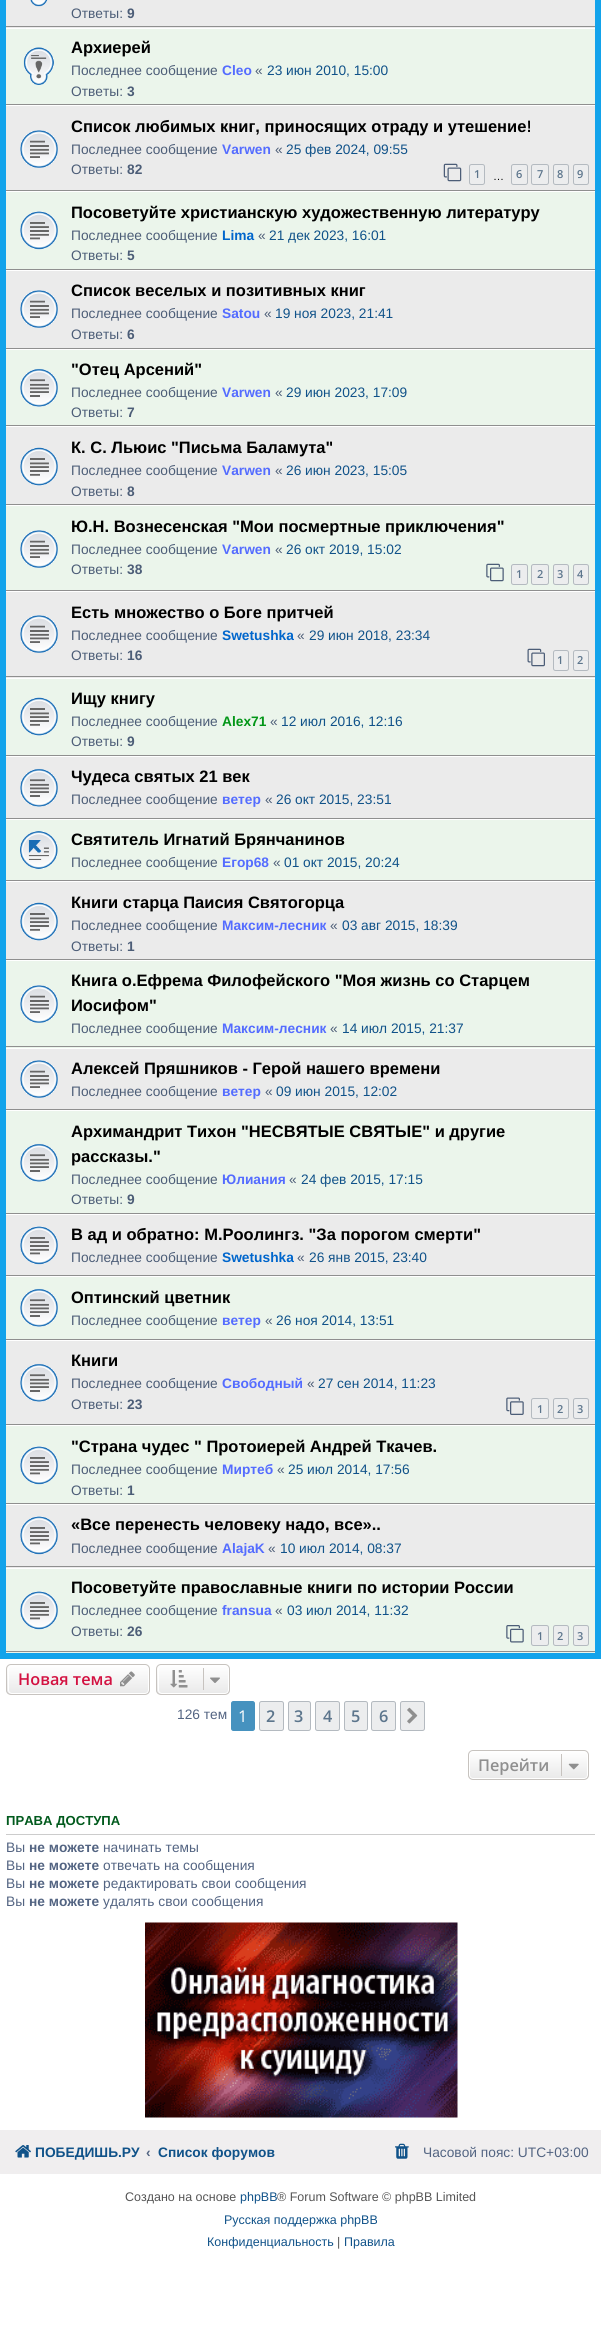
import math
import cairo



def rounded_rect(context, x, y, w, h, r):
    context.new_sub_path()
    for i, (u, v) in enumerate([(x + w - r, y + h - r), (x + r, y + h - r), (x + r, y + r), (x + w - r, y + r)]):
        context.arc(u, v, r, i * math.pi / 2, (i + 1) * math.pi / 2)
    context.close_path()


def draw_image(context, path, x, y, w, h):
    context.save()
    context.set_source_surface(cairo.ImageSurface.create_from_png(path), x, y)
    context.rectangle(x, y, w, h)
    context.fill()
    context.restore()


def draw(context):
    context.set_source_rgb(1, 1, 1)
    context.paint()
    context.set_source_rgb(18 / 255, 163 / 255, 235 / 255)
    context.rectangle(0, 0, 601, 1659)
    context.fill()
    context.set_source_rgb(235 / 255, 235 / 255, 235 / 255)
    context.rectangle(6, 0, 589, 28)
    context.fill()
    context.set_source_rgb(143 / 255, 143 / 255, 143 / 255)
    context.rectangle(6, 26, 589, 1)
    context.fill()
    draw_image(context, "images/1.png", 30, 0, 18, 7)
    context.set_source_rgb(235 / 255, 245 / 255, 235 / 255)
    context.rectangle(6, 29, 589, 75)
    context.fill()
    context.set_source_rgb(1, 1, 1)
    context.rectangle(6, 28, 589, 1)
    context.fill()
    context.set_source_rgb(143 / 255, 143 / 255, 143 / 255)
    context.rectangle(6, 104, 589, 1)
    context.fill()
    draw_image(context, "images/2.png", 23, 47, 31, 38)
    context.set_source_rgb(235 / 255, 235 / 255, 235 / 255)
    context.rectangle(6, 106, 589, 84)
    context.fill()
    context.set_source_rgb(1, 1, 1)
    context.rectangle(6, 105, 589, 1)
    context.fill()
    context.set_source_rgb(143 / 255, 143 / 255, 143 / 255)
    context.rectangle(6, 190, 589, 1)
    context.fill()
    draw_image(context, "images/3.png", 20, 130, 38, 38)
    draw_image(context, "images/4.png", 443, 163, 19, 19)
    context.set_source_rgb(236 / 255, 237 / 255, 238 / 255)
    rounded_rect(context, 469.5, 164.5, 15, 20, 2)
    context.fill_preserve()
    context.set_source_rgb(180 / 255, 186 / 255, 192 / 255)
    context.set_line_width(1)
    context.stroke()
    context.set_source_rgb(236 / 255, 237 / 255, 238 / 255)
    rounded_rect(context, 511.5, 164.5, 16, 20, 2)
    context.fill_preserve()
    context.set_source_rgb(180 / 255, 186 / 255, 192 / 255)
    context.stroke()
    context.set_source_rgb(236 / 255, 237 / 255, 238 / 255)
    rounded_rect(context, 531.5, 164.5, 17, 20, 2)
    context.fill_preserve()
    context.set_source_rgb(180 / 255, 186 / 255, 192 / 255)
    context.stroke()
    context.set_source_rgb(236 / 255, 237 / 255, 238 / 255)
    rounded_rect(context, 553.5, 164.5, 15, 20, 2)
    context.fill_preserve()
    context.set_source_rgb(180 / 255, 186 / 255, 192 / 255)
    context.stroke()
    context.set_source_rgb(236 / 255, 237 / 255, 238 / 255)
    rounded_rect(context, 573.5, 164.5, 15, 20, 2)
    context.fill_preserve()
    context.set_source_rgb(180 / 255, 186 / 255, 192 / 255)
    context.stroke()
    context.set_source_rgb(235 / 255, 245 / 255, 235 / 255)
    context.rectangle(6, 192, 589, 77)
    context.fill()
    context.set_source_rgb(1, 1, 1)
    context.rectangle(6, 191, 589, 1)
    context.fill()
    context.set_source_rgb(143 / 255, 143 / 255, 143 / 255)
    context.rectangle(6, 269, 589, 1)
    context.fill()
    draw_image(context, "images/5.png", 20, 211, 38, 39)
    context.set_source_rgb(235 / 255, 235 / 255, 235 / 255)
    context.rectangle(6, 271, 589, 77)
    context.fill()
    context.set_source_rgb(1, 1, 1)
    context.rectangle(6, 270, 589, 1)
    context.fill()
    context.set_source_rgb(143 / 255, 143 / 255, 143 / 255)
    context.rectangle(6, 348, 589, 1)
    context.fill()
    draw_image(context, "images/3.png", 20, 290, 38, 38)
    context.set_source_rgb(235 / 255, 245 / 255, 235 / 255)
    context.rectangle(6, 350, 589, 75)
    context.fill()
    context.set_source_rgb(1, 1, 1)
    context.rectangle(6, 349, 589, 1)
    context.fill()
    context.set_source_rgb(143 / 255, 143 / 255, 143 / 255)
    context.rectangle(6, 425, 589, 1)
    context.fill()
    draw_image(context, "images/6.png", 20, 368, 38, 39)
    context.set_source_rgb(235 / 255, 235 / 255, 235 / 255)
    context.rectangle(6, 427, 589, 77)
    context.fill()
    context.set_source_rgb(1, 1, 1)
    context.rectangle(6, 426, 589, 1)
    context.fill()
    context.set_source_rgb(143 / 255, 143 / 255, 143 / 255)
    context.rectangle(6, 504, 589, 1)
    context.fill()
    draw_image(context, "images/7.png", 20, 447, 38, 39)
    context.set_source_rgb(235 / 255, 245 / 255, 235 / 255)
    context.rectangle(6, 506, 589, 84)
    context.fill()
    context.set_source_rgb(1, 1, 1)
    context.rectangle(6, 505, 589, 1)
    context.fill()
    context.set_source_rgb(143 / 255, 143 / 255, 143 / 255)
    context.rectangle(6, 590, 589, 1)
    context.fill()
    draw_image(context, "images/8.png", 20, 530, 38, 38)
    draw_image(context, "images/9.png", 486, 563, 18, 19)
    context.set_source_rgb(236 / 255, 237 / 255, 238 / 255)
    rounded_rect(context, 511.5, 564.5, 16, 20, 2)
    context.fill_preserve()
    context.set_source_rgb(180 / 255, 186 / 255, 192 / 255)
    context.stroke()
    context.set_source_rgb(236 / 255, 237 / 255, 238 / 255)
    rounded_rect(context, 531.5, 564.5, 17, 20, 2)
    context.fill_preserve()
    context.set_source_rgb(180 / 255, 186 / 255, 192 / 255)
    context.stroke()
    context.set_source_rgb(236 / 255, 237 / 255, 238 / 255)
    rounded_rect(context, 553.5, 564.5, 15, 20, 2)
    context.fill_preserve()
    context.set_source_rgb(180 / 255, 186 / 255, 192 / 255)
    context.stroke()
    context.set_source_rgb(236 / 255, 237 / 255, 238 / 255)
    rounded_rect(context, 573.5, 564.5, 15, 20, 2)
    context.fill_preserve()
    context.set_source_rgb(180 / 255, 186 / 255, 192 / 255)
    context.stroke()
    context.set_source_rgb(235 / 255, 235 / 255, 235 / 255)
    context.rectangle(6, 592, 589, 86)
    context.fill()
    context.set_source_rgb(1, 1, 1)
    context.rectangle(6, 591, 589, 1)
    context.fill()
    context.set_source_rgb(143 / 255, 143 / 255, 143 / 255)
    context.rectangle(6, 676, 589, 1)
    context.fill()
    draw_image(context, "images/3.png", 20, 615, 38, 38)
    draw_image(context, "images/10.png", 527, 648, 18, 19)
    context.set_source_rgb(236 / 255, 237 / 255, 238 / 255)
    rounded_rect(context, 553.5, 650.5, 15, 20, 2)
    context.fill_preserve()
    context.set_source_rgb(180 / 255, 186 / 255, 192 / 255)
    context.stroke()
    context.set_source_rgb(236 / 255, 237 / 255, 238 / 255)
    rounded_rect(context, 573.5, 650.5, 15, 20, 2)
    context.fill_preserve()
    context.set_source_rgb(180 / 255, 186 / 255, 192 / 255)
    context.stroke()
    context.set_source_rgb(235 / 255, 245 / 255, 235 / 255)
    context.rectangle(6, 679, 589, 76)
    context.fill()
    context.set_source_rgb(1, 1, 1)
    context.rectangle(6, 678, 589, 1)
    context.fill()
    context.set_source_rgb(143 / 255, 143 / 255, 143 / 255)
    context.rectangle(6, 755, 589, 1)
    context.fill()
    draw_image(context, "images/11.png", 20, 697, 38, 39)
    context.set_source_rgb(235 / 255, 235 / 255, 235 / 255)
    context.rectangle(6, 757, 589, 61)
    context.fill()
    context.set_source_rgb(1, 1, 1)
    context.rectangle(6, 756, 589, 1)
    context.fill()
    context.set_source_rgb(143 / 255, 143 / 255, 143 / 255)
    context.rectangle(6, 818, 589, 1)
    context.fill()
    draw_image(context, "images/12.png", 20, 768, 38, 39)
    context.set_source_rgb(235 / 255, 245 / 255, 235 / 255)
    context.rectangle(6, 820, 589, 60)
    context.fill()
    context.set_source_rgb(1, 1, 1)
    context.rectangle(6, 819, 589, 1)
    context.fill()
    context.set_source_rgb(143 / 255, 143 / 255, 143 / 255)
    context.rectangle(6, 880, 589, 1)
    context.fill()
    draw_image(context, "images/13.png", 20, 831, 38, 38)
    context.set_source_rgb(235 / 255, 235 / 255, 235 / 255)
    context.rectangle(6, 882, 589, 77)
    context.fill()
    context.set_source_rgb(1, 1, 1)
    context.rectangle(6, 881, 589, 1)
    context.fill()
    context.set_source_rgb(143 / 255, 143 / 255, 143 / 255)
    context.rectangle(6, 959, 589, 1)
    context.fill()
    draw_image(context, "images/7.png", 20, 902, 38, 39)
    context.set_source_rgb(235 / 255, 245 / 255, 235 / 255)
    context.rectangle(6, 961, 589, 87)
    context.fill()
    context.set_source_rgb(1, 1, 1)
    context.rectangle(6, 960, 589, 1)
    context.fill()
    context.set_source_rgb(143 / 255, 143 / 255, 143 / 255)
    context.rectangle(6, 1046, 589, 1)
    context.fill()
    draw_image(context, "images/8.png", 20, 985, 38, 38)
    context.set_source_rgb(235 / 255, 235 / 255, 235 / 255)
    context.rectangle(6, 1049, 589, 60)
    context.fill()
    context.set_source_rgb(1, 1, 1)
    context.rectangle(6, 1048, 589, 1)
    context.fill()
    context.set_source_rgb(143 / 255, 143 / 255, 143 / 255)
    context.rectangle(6, 1109, 589, 1)
    context.fill()
    draw_image(context, "images/3.png", 20, 1060, 38, 38)
    context.set_source_rgb(235 / 255, 245 / 255, 235 / 255)
    context.rectangle(6, 1111, 589, 102)
    context.fill()
    context.set_source_rgb(1, 1, 1)
    context.rectangle(6, 1110, 589, 1)
    context.fill()
    context.set_source_rgb(143 / 255, 143 / 255, 143 / 255)
    context.rectangle(6, 1213, 589, 1)
    context.fill()
    draw_image(context, "images/6.png", 20, 1143, 38, 39)
    context.set_source_rgb(235 / 255, 235 / 255, 235 / 255)
    context.rectangle(6, 1215, 589, 60)
    context.fill()
    context.set_source_rgb(1, 1, 1)
    context.rectangle(6, 1214, 589, 1)
    context.fill()
    context.set_source_rgb(143 / 255, 143 / 255, 143 / 255)
    context.rectangle(6, 1275, 589, 1)
    context.fill()
    draw_image(context, "images/14.png", 20, 1226, 38, 39)
    context.set_source_rgb(235 / 255, 245 / 255, 235 / 255)
    context.rectangle(6, 1277, 589, 62)
    context.fill()
    context.set_source_rgb(1, 1, 1)
    context.rectangle(6, 1276, 589, 1)
    context.fill()
    context.set_source_rgb(143 / 255, 143 / 255, 143 / 255)
    context.rectangle(6, 1339, 589, 1)
    context.fill()
    draw_image(context, "images/6.png", 20, 1288, 38, 39)
    context.set_source_rgb(235 / 255, 235 / 255, 235 / 255)
    context.rectangle(6, 1341, 589, 83)
    context.fill()
    context.set_source_rgb(1, 1, 1)
    context.rectangle(6, 1340, 589, 1)
    context.fill()
    context.set_source_rgb(143 / 255, 143 / 255, 143 / 255)
    context.rectangle(6, 1424, 589, 1)
    context.fill()
    draw_image(context, "images/12.png", 20, 1363, 38, 39)
    draw_image(context, "images/15.png", 506, 1397, 18, 18)
    context.set_source_rgb(236 / 255, 237 / 255, 238 / 255)
    rounded_rect(context, 531.5, 1398.5, 17, 20, 2)
    context.fill_preserve()
    context.set_source_rgb(180 / 255, 186 / 255, 192 / 255)
    context.stroke()
    context.set_source_rgb(236 / 255, 237 / 255, 238 / 255)
    rounded_rect(context, 553.5, 1398.5, 15, 20, 2)
    context.fill_preserve()
    context.set_source_rgb(180 / 255, 186 / 255, 192 / 255)
    context.stroke()
    context.set_source_rgb(236 / 255, 237 / 255, 238 / 255)
    rounded_rect(context, 573.5, 1398.5, 15, 20, 2)
    context.fill_preserve()
    context.set_source_rgb(180 / 255, 186 / 255, 192 / 255)
    context.stroke()
    context.set_source_rgb(235 / 255, 245 / 255, 235 / 255)
    context.rectangle(6, 1426, 589, 77)
    context.fill()
    context.set_source_rgb(1, 1, 1)
    context.rectangle(6, 1425, 589, 1)
    context.fill()
    context.set_source_rgb(143 / 255, 143 / 255, 143 / 255)
    context.rectangle(6, 1503, 589, 1)
    context.fill()
    draw_image(context, "images/5.png", 20, 1446, 38, 39)
    context.set_source_rgb(235 / 255, 235 / 255, 235 / 255)
    context.rectangle(6, 1505, 589, 63)
    context.fill()
    context.set_source_rgb(1, 1, 1)
    context.rectangle(6, 1504, 589, 1)
    context.fill()
    context.set_source_rgb(143 / 255, 143 / 255, 143 / 255)
    context.rectangle(6, 1566, 589, 1)
    context.fill()
    draw_image(context, "images/14.png", 20, 1516, 38, 39)
    context.set_source_rgb(235 / 255, 245 / 255, 235 / 255)
    context.rectangle(6, 1569, 589, 84)
    context.fill()
    context.set_source_rgb(1, 1, 1)
    context.rectangle(6, 1568, 589, 1)
    context.fill()
    context.set_source_rgb(143 / 255, 143 / 255, 143 / 255)
    context.rectangle(6, 1651, 589, 1)
    context.fill()
    draw_image(context, "images/5.png", 20, 1591, 38, 39)
    draw_image(context, "images/16.png", 506, 1625, 18, 18)
    context.set_source_rgb(236 / 255, 237 / 255, 238 / 255)
    rounded_rect(context, 531.5, 1625.5, 17, 20, 2)
    context.fill_preserve()
    context.set_source_rgb(180 / 255, 186 / 255, 192 / 255)
    context.stroke()
    context.set_source_rgb(236 / 255, 237 / 255, 238 / 255)
    rounded_rect(context, 553.5, 1625.5, 15, 20, 2)
    context.fill_preserve()
    context.set_source_rgb(180 / 255, 186 / 255, 192 / 255)
    context.stroke()
    context.set_source_rgb(236 / 255, 237 / 255, 238 / 255)
    rounded_rect(context, 573.5, 1625.5, 15, 20, 2)
    context.fill_preserve()
    context.set_source_rgb(180 / 255, 186 / 255, 192 / 255)
    context.stroke()
    context.save()
    rounded_rect(context, 6, 1664, 144, 31, 5)
    context.clip()
    gradient = cairo.LinearGradient(78, 1665, 78, 1694)
    gradient.add_color_stop_rgba(0, 1, 1, 1, 1)
    gradient.add_color_stop_rgba(1, 233 / 255, 233 / 255, 233 / 255, 1)
    context.set_source(gradient)
    context.rectangle(6, 1665, 144, 29)
    context.fill()
    context.restore()
    rounded_rect(context, 8.5, 1665.5, 140, 28, 3.5)
    context.set_source_rgb(1, 1, 1)
    context.stroke()
    rounded_rect(context, 6.5, 1664.5, 143, 30, 4.5)
    context.set_source_rgb(199 / 255, 195 / 255, 191 / 255)
    context.stroke()
    draw_image(context, "images/17.png", 120, 1671, 15, 16)
    context.save()
    rounded_rect(context, 156, 1664, 74, 31, 5)
    context.clip()
    gradient = cairo.LinearGradient(193, 1665, 193, 1694)
    gradient.add_color_stop_rgba(0, 1, 1, 1, 1)
    gradient.add_color_stop_rgba(1, 233 / 255, 233 / 255, 233 / 255, 1)
    context.set_source(gradient)
    context.rectangle(156, 1665, 74, 29)
    context.fill()
    context.restore()
    rounded_rect(context, 158.5, 1665.5, 70, 28, 3.5)
    context.set_source_rgb(1, 1, 1)
    context.stroke()
    rounded_rect(context, 156.5, 1664.5, 73, 30, 4.5)
    context.set_source_rgb(199 / 255, 195 / 255, 191 / 255)
    context.stroke()
    draw_image(context, "images/18.png", 170, 1670, 18, 18)
    context.rectangle(203, 1668, 1, 22)
    context.fill()
    draw_image(context, "images/19.png", 210, 1677, 10, 6)
    context.set_source_rgb(70 / 255, 146 / 255, 191 / 255)
    rounded_rect(context, 231.5, 1701.5, 23, 29, 2)
    context.fill_preserve()
    context.stroke()
    context.set_source_rgb(236 / 255, 237 / 255, 238 / 255)
    rounded_rect(context, 259.5, 1701.5, 24, 29, 2)
    context.fill_preserve()
    context.set_source_rgb(180 / 255, 186 / 255, 192 / 255)
    context.stroke()
    context.set_source_rgb(236 / 255, 237 / 255, 238 / 255)
    rounded_rect(context, 288.5, 1701.5, 22, 29, 2)
    context.fill_preserve()
    context.set_source_rgb(180 / 255, 186 / 255, 192 / 255)
    context.stroke()
    context.set_source_rgb(236 / 255, 237 / 255, 238 / 255)
    rounded_rect(context, 315.5, 1701.5, 24, 29, 2)
    context.fill_preserve()
    context.set_source_rgb(180 / 255, 186 / 255, 192 / 255)
    context.stroke()
    context.set_source_rgb(236 / 255, 237 / 255, 238 / 255)
    rounded_rect(context, 344.5, 1701.5, 23, 29, 2)
    context.fill_preserve()
    context.set_source_rgb(180 / 255, 186 / 255, 192 / 255)
    context.stroke()
    context.set_source_rgb(236 / 255, 237 / 255, 238 / 255)
    rounded_rect(context, 371.5, 1701.5, 24, 29, 2)
    context.fill_preserve()
    context.set_source_rgb(180 / 255, 186 / 255, 192 / 255)
    context.stroke()
    context.set_source_rgb(236 / 255, 237 / 255, 238 / 255)
    rounded_rect(context, 400.5, 1701.5, 24, 29, 2)
    context.fill_preserve()
    context.set_source_rgb(180 / 255, 186 / 255, 192 / 255)
    context.stroke()
    draw_image(context, "images/20.png", 407, 1707, 11, 17)
    context.save()
    rounded_rect(context, 468, 1750, 121, 30, 5)
    context.clip()
    gradient = cairo.LinearGradient(528, 1751, 528, 1779)
    gradient.add_color_stop_rgba(0, 1, 1, 1, 1)
    gradient.add_color_stop_rgba(1, 233 / 255, 233 / 255, 233 / 255, 1)
    context.set_source(gradient)
    context.rectangle(468, 1751, 121, 28)
    context.fill()
    context.restore()
    rounded_rect(context, 469.5, 1751.5, 118, 27, 3.5)
    context.set_source_rgb(1, 1, 1)
    context.stroke()
    rounded_rect(context, 468.5, 1750.5, 120, 29, 4.5)
    context.set_source_rgb(199 / 255, 195 / 255, 191 / 255)
    context.stroke()
    context.rectangle(561, 1754, 1, 22)
    context.fill()
    draw_image(context, "images/21.png", 568, 1763, 11, 7)
    context.set_source_rgb(204 / 255, 204 / 255, 204 / 255)
    context.rectangle(6, 1834, 589, 1)
    context.fill()
    draw_image(context, "images/22.png", 145, 1922, 313, 196)
    context.set_source_rgb(240 / 255, 238 / 255, 239 / 255)
    context.rectangle(0, 2130, 601, 44)
    context.fill()
    draw_image(context, "images/23.png", 15, 2145, 16, 13)
    draw_image(context, "images/24.png", 395, 2143, 14, 16)
    context.select_font_face("Liberation Sans")
    context.set_font_size(13.75)
    context.set_source_rgb(76 / 255, 93 / 255, 119 / 255)
    context.move_to(71, 18)
    context.show_text("Ответы:")
    context.select_font_face("Liberation Sans", cairo.FontSlant.NORMAL, cairo.FontWeight.BOLD)
    context.move_to(127, 18)
    context.show_text("9")
    context.set_font_size(16.5)
    context.set_source_rgb(0, 0, 0)
    context.move_to(71, 53)
    context.show_text("Архиерей")
    context.select_font_face("Liberation Sans")
    context.set_font_size(13.75)
    context.set_source_rgb(76 / 255, 93 / 255, 119 / 255)
    context.move_to(71, 75)
    context.show_text("Последнее сообщение")
    context.select_font_face("Liberation Sans", cairo.FontSlant.NORMAL, cairo.FontWeight.BOLD)
    context.set_source_rgb(84 / 255, 108 / 255, 1)
    context.move_to(222, 75)
    context.show_text("Cleo")
    context.select_font_face("Liberation Sans")
    context.set_source_rgb(76 / 255, 93 / 255, 119 / 255)
    context.move_to(255, 75)
    context.show_text("«")
    context.set_source_rgb(16 / 255, 82 / 255, 137 / 255)
    context.move_to(267, 75)
    context.show_text("23 июн 2010, 15:00")
    context.set_source_rgb(76 / 255, 93 / 255, 119 / 255)
    context.move_to(71, 96)
    context.show_text("Ответы:")
    context.select_font_face("Liberation Sans", cairo.FontSlant.NORMAL, cairo.FontWeight.BOLD)
    context.move_to(127, 96)
    context.show_text("3")
    context.set_font_size(16.5)
    context.set_source_rgb(0, 0, 0)
    context.move_to(71, 132)
    context.show_text("Список любимых книг, приносящих отраду и утешение!")
    context.select_font_face("Liberation Sans")
    context.set_font_size(13.75)
    context.set_source_rgb(76 / 255, 93 / 255, 119 / 255)
    context.move_to(71, 154)
    context.show_text("Последнее сообщение")
    context.select_font_face("Liberation Sans", cairo.FontSlant.NORMAL, cairo.FontWeight.BOLD)
    context.set_source_rgb(84 / 255, 108 / 255, 1)
    context.move_to(222, 154)
    context.show_text("Varwen")
    context.select_font_face("Liberation Sans")
    context.set_source_rgb(76 / 255, 93 / 255, 119 / 255)
    context.move_to(275, 154)
    context.show_text("«")
    context.set_source_rgb(16 / 255, 82 / 255, 137 / 255)
    context.move_to(286, 154)
    context.show_text("25 фев 2024, 09:55")
    context.set_source_rgb(76 / 255, 93 / 255, 119 / 255)
    context.move_to(71, 174)
    context.show_text("Ответы:")
    context.select_font_face("Liberation Sans", cairo.FontSlant.NORMAL, cairo.FontWeight.BOLD)
    context.move_to(127, 174)
    context.show_text("82")
    context.select_font_face("Open Sans SemiBold")
    context.set_font_size(11)
    context.set_source_rgb(92 / 255, 117 / 255, 140 / 255)
    context.move_to(474, 178)
    context.show_text("1")
    context.move_to(516, 178)
    context.show_text("6")
    context.move_to(537, 178)
    context.show_text("7")
    context.move_to(557, 178)
    context.show_text("8")
    context.move_to(577, 178)
    context.show_text("9")
    context.select_font_face("Liberation Sans")
    context.set_source_rgb(0, 0, 0)
    context.move_to(493, 180)
    context.show_text("…")
    context.select_font_face("Liberation Sans", cairo.FontSlant.NORMAL, cairo.FontWeight.BOLD)
    context.set_font_size(16.5)
    context.move_to(71, 218)
    context.show_text("Посоветуйте христианскую художественную литературу")
    context.select_font_face("Liberation Sans")
    context.set_font_size(13.75)
    context.set_source_rgb(76 / 255, 93 / 255, 119 / 255)
    context.move_to(71, 240)
    context.show_text("Последнее сообщение")
    context.select_font_face("Liberation Sans", cairo.FontSlant.NORMAL, cairo.FontWeight.BOLD)
    context.set_source_rgb(0, 102 / 255, 204 / 255)
    context.move_to(222, 240)
    context.show_text("Lima")
    context.select_font_face("Liberation Sans")
    context.set_source_rgb(76 / 255, 93 / 255, 119 / 255)
    context.move_to(258, 240)
    context.show_text("«")
    context.set_source_rgb(16 / 255, 82 / 255, 137 / 255)
    context.move_to(269, 240)
    context.show_text("21 дек 2023, 16:01")
    context.set_source_rgb(76 / 255, 93 / 255, 119 / 255)
    context.move_to(71, 260)
    context.show_text("Ответы:")
    context.select_font_face("Liberation Sans", cairo.FontSlant.NORMAL, cairo.FontWeight.BOLD)
    context.move_to(127, 260)
    context.show_text("5")
    context.set_font_size(16.5)
    context.set_source_rgb(0, 0, 0)
    context.move_to(71, 296)
    context.show_text("Список веселых и позитивных книг")
    context.select_font_face("Liberation Sans")
    context.set_font_size(13.75)
    context.set_source_rgb(76 / 255, 93 / 255, 119 / 255)
    context.move_to(71, 318)
    context.show_text("Последнее сообщение")
    context.select_font_face("Liberation Sans", cairo.FontSlant.NORMAL, cairo.FontWeight.BOLD)
    context.set_source_rgb(84 / 255, 108 / 255, 1)
    context.move_to(222, 318)
    context.show_text("Satou")
    context.select_font_face("Liberation Sans")
    context.set_source_rgb(76 / 255, 93 / 255, 119 / 255)
    context.move_to(264, 318)
    context.show_text("«")
    context.set_source_rgb(16 / 255, 82 / 255, 137 / 255)
    context.move_to(275, 318)
    context.show_text("19 ноя 2023, 21:41")
    context.set_source_rgb(76 / 255, 93 / 255, 119 / 255)
    context.move_to(71, 339)
    context.show_text("Ответы:")
    context.select_font_face("Liberation Sans", cairo.FontSlant.NORMAL, cairo.FontWeight.BOLD)
    context.move_to(127, 339)
    context.show_text("6")
    context.set_font_size(16.5)
    context.set_source_rgb(0, 0, 0)
    context.move_to(71, 375)
    context.show_text("\"Отец Арсений\"")
    context.select_font_face("Liberation Sans")
    context.set_font_size(13.75)
    context.set_source_rgb(76 / 255, 93 / 255, 119 / 255)
    context.move_to(71, 397)
    context.show_text("Последнее сообщение")
    context.select_font_face("Liberation Sans", cairo.FontSlant.NORMAL, cairo.FontWeight.BOLD)
    context.set_source_rgb(84 / 255, 108 / 255, 1)
    context.move_to(222, 397)
    context.show_text("Varwen")
    context.select_font_face("Liberation Sans")
    context.set_source_rgb(76 / 255, 93 / 255, 119 / 255)
    context.move_to(275, 397)
    context.show_text("«")
    context.set_source_rgb(16 / 255, 82 / 255, 137 / 255)
    context.move_to(286, 397)
    context.show_text("29 июн 2023, 17:09")
    context.set_source_rgb(76 / 255, 93 / 255, 119 / 255)
    context.move_to(71, 417)
    context.show_text("Ответы:")
    context.select_font_face("Liberation Sans", cairo.FontSlant.NORMAL, cairo.FontWeight.BOLD)
    context.move_to(127, 417)
    context.show_text("7")
    context.set_font_size(16.5)
    context.set_source_rgb(0, 0, 0)
    context.move_to(71, 453)
    context.show_text("К. С. Льюис \"Письма Баламута\"")
    context.select_font_face("Liberation Sans")
    context.set_font_size(13.75)
    context.set_source_rgb(76 / 255, 93 / 255, 119 / 255)
    context.move_to(71, 475)
    context.show_text("Последнее сообщение")
    context.select_font_face("Liberation Sans", cairo.FontSlant.NORMAL, cairo.FontWeight.BOLD)
    context.set_source_rgb(84 / 255, 108 / 255, 1)
    context.move_to(222, 475)
    context.show_text("Varwen")
    context.select_font_face("Liberation Sans")
    context.set_source_rgb(76 / 255, 93 / 255, 119 / 255)
    context.move_to(275, 475)
    context.show_text("«")
    context.set_source_rgb(16 / 255, 82 / 255, 137 / 255)
    context.move_to(286, 475)
    context.show_text("26 июн 2023, 15:05")
    context.set_source_rgb(76 / 255, 93 / 255, 119 / 255)
    context.move_to(71, 496)
    context.show_text("Ответы:")
    context.select_font_face("Liberation Sans", cairo.FontSlant.NORMAL, cairo.FontWeight.BOLD)
    context.move_to(127, 496)
    context.show_text("8")
    context.set_font_size(16.5)
    context.set_source_rgb(0, 0, 0)
    context.move_to(71, 532)
    context.show_text("Ю.Н. Вознесенская \"Мои посмертные приключения\"")
    context.select_font_face("Liberation Sans")
    context.set_font_size(13.75)
    context.set_source_rgb(76 / 255, 93 / 255, 119 / 255)
    context.move_to(71, 554)
    context.show_text("Последнее сообщение")
    context.select_font_face("Liberation Sans", cairo.FontSlant.NORMAL, cairo.FontWeight.BOLD)
    context.set_source_rgb(84 / 255, 108 / 255, 1)
    context.move_to(222, 554)
    context.show_text("Varwen")
    context.select_font_face("Liberation Sans")
    context.set_source_rgb(76 / 255, 93 / 255, 119 / 255)
    context.move_to(275, 554)
    context.show_text("«")
    context.set_source_rgb(16 / 255, 82 / 255, 137 / 255)
    context.move_to(286, 554)
    context.show_text("26 окт 2019, 15:02")
    context.set_source_rgb(76 / 255, 93 / 255, 119 / 255)
    context.move_to(71, 574)
    context.show_text("Ответы:")
    context.select_font_face("Liberation Sans", cairo.FontSlant.NORMAL, cairo.FontWeight.BOLD)
    context.move_to(127, 574)
    context.show_text("38")
    context.select_font_face("Open Sans SemiBold")
    context.set_font_size(11)
    context.set_source_rgb(92 / 255, 117 / 255, 140 / 255)
    context.move_to(516, 578)
    context.show_text("1")
    context.move_to(537, 578)
    context.show_text("2")
    context.move_to(557, 578)
    context.show_text("3")
    context.move_to(577, 578)
    context.show_text("4")
    context.select_font_face("Liberation Sans", cairo.FontSlant.NORMAL, cairo.FontWeight.BOLD)
    context.set_font_size(16.5)
    context.set_source_rgb(0, 0, 0)
    context.move_to(71, 618)
    context.show_text("Есть множество о Боге притчей")
    context.select_font_face("Liberation Sans")
    context.set_font_size(13.75)
    context.set_source_rgb(76 / 255, 93 / 255, 119 / 255)
    context.move_to(71, 640)
    context.show_text("Последнее сообщение")
    context.select_font_face("Liberation Sans", cairo.FontSlant.NORMAL, cairo.FontWeight.BOLD)
    context.set_source_rgb(0, 102 / 255, 204 / 255)
    context.move_to(222, 640)
    context.show_text("Swetushka")
    context.select_font_face("Liberation Sans")
    context.set_source_rgb(76 / 255, 93 / 255, 119 / 255)
    context.move_to(297, 640)
    context.show_text("«")
    context.set_source_rgb(16 / 255, 82 / 255, 137 / 255)
    context.move_to(309, 640)
    context.show_text("29 июн 2018, 23:34")
    context.set_source_rgb(76 / 255, 93 / 255, 119 / 255)
    context.move_to(71, 660)
    context.show_text("Ответы:")
    context.select_font_face("Liberation Sans", cairo.FontSlant.NORMAL, cairo.FontWeight.BOLD)
    context.move_to(127, 660)
    context.show_text("16")
    context.select_font_face("Open Sans SemiBold")
    context.set_font_size(11)
    context.set_source_rgb(92 / 255, 117 / 255, 140 / 255)
    context.move_to(557, 664)
    context.show_text("1")
    context.move_to(577, 664)
    context.show_text("2")
    context.select_font_face("Liberation Sans", cairo.FontSlant.NORMAL, cairo.FontWeight.BOLD)
    context.set_font_size(16.5)
    context.set_source_rgb(0, 0, 0)
    context.move_to(71, 704)
    context.show_text("Ищу книгу")
    context.select_font_face("Liberation Sans")
    context.set_font_size(13.75)
    context.set_source_rgb(76 / 255, 93 / 255, 119 / 255)
    context.move_to(71, 726)
    context.show_text("Последнее сообщение")
    context.select_font_face("Liberation Sans", cairo.FontSlant.NORMAL, cairo.FontWeight.BOLD)
    context.set_source_rgb(2 / 255, 150 / 255, 23 / 255)
    context.move_to(222, 726)
    context.show_text("Alex71")
    context.select_font_face("Liberation Sans")
    context.set_source_rgb(76 / 255, 93 / 255, 119 / 255)
    context.move_to(270, 726)
    context.show_text("«")
    context.set_source_rgb(16 / 255, 82 / 255, 137 / 255)
    context.move_to(281, 726)
    context.show_text("12 июл 2016, 12:16")
    context.set_source_rgb(76 / 255, 93 / 255, 119 / 255)
    context.move_to(71, 746)
    context.show_text("Ответы:")
    context.select_font_face("Liberation Sans", cairo.FontSlant.NORMAL, cairo.FontWeight.BOLD)
    context.move_to(127, 746)
    context.show_text("9")
    context.set_font_size(16.5)
    context.set_source_rgb(0, 0, 0)
    context.move_to(71, 782)
    context.show_text("Чудеса святых 21 век")
    context.select_font_face("Liberation Sans")
    context.set_font_size(13.75)
    context.set_source_rgb(76 / 255, 93 / 255, 119 / 255)
    context.move_to(71, 804)
    context.show_text("Последнее сообщение")
    context.select_font_face("Liberation Sans", cairo.FontSlant.NORMAL, cairo.FontWeight.BOLD)
    context.set_source_rgb(84 / 255, 108 / 255, 1)
    context.move_to(222, 804)
    context.show_text("ветер")
    context.select_font_face("Liberation Sans")
    context.set_source_rgb(76 / 255, 93 / 255, 119 / 255)
    context.move_to(265, 804)
    context.show_text("«")
    context.set_source_rgb(16 / 255, 82 / 255, 137 / 255)
    context.move_to(276, 804)
    context.show_text("26 окт 2015, 23:51")
    context.select_font_face("Liberation Sans", cairo.FontSlant.NORMAL, cairo.FontWeight.BOLD)
    context.set_font_size(16.5)
    context.set_source_rgb(0, 0, 0)
    context.move_to(71, 845)
    context.show_text("Святитель Игнатий Брянчанинов")
    context.select_font_face("Liberation Sans")
    context.set_font_size(13.75)
    context.set_source_rgb(76 / 255, 93 / 255, 119 / 255)
    context.move_to(71, 867)
    context.show_text("Последнее сообщение")
    context.select_font_face("Liberation Sans", cairo.FontSlant.NORMAL, cairo.FontWeight.BOLD)
    context.set_source_rgb(84 / 255, 108 / 255, 1)
    context.move_to(222, 867)
    context.show_text("Егор68")
    context.select_font_face("Liberation Sans")
    context.set_source_rgb(76 / 255, 93 / 255, 119 / 255)
    context.move_to(273, 867)
    context.show_text("«")
    context.set_source_rgb(16 / 255, 82 / 255, 137 / 255)
    context.move_to(284, 867)
    context.show_text("01 окт 2015, 20:24")
    context.select_font_face("Liberation Sans", cairo.FontSlant.NORMAL, cairo.FontWeight.BOLD)
    context.set_font_size(16.5)
    context.set_source_rgb(0, 0, 0)
    context.move_to(71, 908)
    context.show_text("Книги старца Паисия Святогорца")
    context.select_font_face("Liberation Sans")
    context.set_font_size(13.75)
    context.set_source_rgb(76 / 255, 93 / 255, 119 / 255)
    context.move_to(71, 930)
    context.show_text("Последнее сообщение")
    context.select_font_face("Liberation Sans", cairo.FontSlant.NORMAL, cairo.FontWeight.BOLD)
    context.set_source_rgb(84 / 255, 108 / 255, 1)
    context.move_to(222, 930)
    context.show_text("Максим-лесник")
    context.select_font_face("Liberation Sans")
    context.set_source_rgb(76 / 255, 93 / 255, 119 / 255)
    context.move_to(330, 930)
    context.show_text("«")
    context.set_source_rgb(16 / 255, 82 / 255, 137 / 255)
    context.move_to(342, 930)
    context.show_text("03 авг 2015, 18:39")
    context.set_source_rgb(76 / 255, 93 / 255, 119 / 255)
    context.move_to(71, 951)
    context.show_text("Ответы:")
    context.select_font_face("Liberation Sans", cairo.FontSlant.NORMAL, cairo.FontWeight.BOLD)
    context.move_to(127, 951)
    context.show_text("1")
    context.set_font_size(16.5)
    context.set_source_rgb(0, 0, 0)
    context.move_to(71, 986)
    context.show_text("Книга о.Ефрема Филофейского \"Моя жизнь со Старцем")
    context.move_to(71, 1011)
    context.show_text("Иосифом\"")
    context.select_font_face("Liberation Sans")
    context.set_font_size(13.75)
    context.set_source_rgb(76 / 255, 93 / 255, 119 / 255)
    context.move_to(71, 1033)
    context.show_text("Последнее сообщение")
    context.select_font_face("Liberation Sans", cairo.FontSlant.NORMAL, cairo.FontWeight.BOLD)
    context.set_source_rgb(84 / 255, 108 / 255, 1)
    context.move_to(222, 1033)
    context.show_text("Максим-лесник")
    context.select_font_face("Liberation Sans")
    context.set_source_rgb(76 / 255, 93 / 255, 119 / 255)
    context.move_to(330, 1033)
    context.show_text("«")
    context.set_source_rgb(16 / 255, 82 / 255, 137 / 255)
    context.move_to(342, 1033)
    context.show_text("14 июл 2015, 21:37")
    context.select_font_face("Liberation Sans", cairo.FontSlant.NORMAL, cairo.FontWeight.BOLD)
    context.set_font_size(16.5)
    context.set_source_rgb(0, 0, 0)
    context.move_to(71, 1074)
    context.show_text("Алексей Пряшников - Герой нашего времени")
    context.select_font_face("Liberation Sans")
    context.set_font_size(13.75)
    context.set_source_rgb(76 / 255, 93 / 255, 119 / 255)
    context.move_to(71, 1096)
    context.show_text("Последнее сообщение")
    context.select_font_face("Liberation Sans", cairo.FontSlant.NORMAL, cairo.FontWeight.BOLD)
    context.set_source_rgb(84 / 255, 108 / 255, 1)
    context.move_to(222, 1096)
    context.show_text("ветер")
    context.select_font_face("Liberation Sans")
    context.set_source_rgb(76 / 255, 93 / 255, 119 / 255)
    context.move_to(265, 1096)
    context.show_text("«")
    context.set_source_rgb(16 / 255, 82 / 255, 137 / 255)
    context.move_to(276, 1096)
    context.show_text("09 июн 2015, 12:02")
    context.select_font_face("Liberation Sans", cairo.FontSlant.NORMAL, cairo.FontWeight.BOLD)
    context.set_font_size(16.5)
    context.set_source_rgb(0, 0, 0)
    context.move_to(71, 1137)
    context.show_text("Архимандрит Тихон \"НЕСВЯТЫЕ СВЯТЫЕ\" и другие")
    context.move_to(71, 1162)
    context.show_text("рассказы.\"")
    context.select_font_face("Liberation Sans")
    context.set_font_size(13.75)
    context.set_source_rgb(76 / 255, 93 / 255, 119 / 255)
    context.move_to(71, 1184)
    context.show_text("Последнее сообщение")
    context.select_font_face("Liberation Sans", cairo.FontSlant.NORMAL, cairo.FontWeight.BOLD)
    context.set_source_rgb(84 / 255, 108 / 255, 1)
    context.move_to(222, 1184)
    context.show_text("Юлиания")
    context.select_font_face("Liberation Sans")
    context.set_source_rgb(76 / 255, 93 / 255, 119 / 255)
    context.move_to(289, 1184)
    context.show_text("«")
    context.set_source_rgb(16 / 255, 82 / 255, 137 / 255)
    context.move_to(301, 1184)
    context.show_text("24 фев 2015, 17:15")
    context.set_source_rgb(76 / 255, 93 / 255, 119 / 255)
    context.move_to(71, 1204)
    context.show_text("Ответы:")
    context.select_font_face("Liberation Sans", cairo.FontSlant.NORMAL, cairo.FontWeight.BOLD)
    context.move_to(127, 1204)
    context.show_text("9")
    context.set_font_size(16.5)
    context.set_source_rgb(0, 0, 0)
    context.move_to(71, 1240)
    context.show_text("В ад и обратно: М.Роолингз. \"За порогом смерти\"")
    context.select_font_face("Liberation Sans")
    context.set_font_size(13.75)
    context.set_source_rgb(76 / 255, 93 / 255, 119 / 255)
    context.move_to(71, 1262)
    context.show_text("Последнее сообщение")
    context.select_font_face("Liberation Sans", cairo.FontSlant.NORMAL, cairo.FontWeight.BOLD)
    context.set_source_rgb(0, 102 / 255, 204 / 255)
    context.move_to(222, 1262)
    context.show_text("Swetushka")
    context.select_font_face("Liberation Sans")
    context.set_source_rgb(76 / 255, 93 / 255, 119 / 255)
    context.move_to(297, 1262)
    context.show_text("«")
    context.set_source_rgb(16 / 255, 82 / 255, 137 / 255)
    context.move_to(309, 1262)
    context.show_text("26 янв 2015, 23:40")
    context.select_font_face("Liberation Sans", cairo.FontSlant.NORMAL, cairo.FontWeight.BOLD)
    context.set_font_size(16.5)
    context.set_source_rgb(0, 0, 0)
    context.move_to(71, 1303)
    context.show_text("Оптинский цветник")
    context.select_font_face("Liberation Sans")
    context.set_font_size(13.75)
    context.set_source_rgb(76 / 255, 93 / 255, 119 / 255)
    context.move_to(71, 1325)
    context.show_text("Последнее сообщение")
    context.select_font_face("Liberation Sans", cairo.FontSlant.NORMAL, cairo.FontWeight.BOLD)
    context.set_source_rgb(84 / 255, 108 / 255, 1)
    context.move_to(222, 1325)
    context.show_text("ветер")
    context.select_font_face("Liberation Sans")
    context.set_source_rgb(76 / 255, 93 / 255, 119 / 255)
    context.move_to(265, 1325)
    context.show_text("«")
    context.set_source_rgb(16 / 255, 82 / 255, 137 / 255)
    context.move_to(276, 1325)
    context.show_text("26 ноя 2014, 13:51")
    context.select_font_face("Liberation Sans", cairo.FontSlant.NORMAL, cairo.FontWeight.BOLD)
    context.set_font_size(16.5)
    context.set_source_rgb(0, 0, 0)
    context.move_to(71, 1366)
    context.show_text("Книги")
    context.select_font_face("Liberation Sans")
    context.set_font_size(13.75)
    context.set_source_rgb(76 / 255, 93 / 255, 119 / 255)
    context.move_to(71, 1388)
    context.show_text("Последнее сообщение")
    context.select_font_face("Liberation Sans", cairo.FontSlant.NORMAL, cairo.FontWeight.BOLD)
    context.set_source_rgb(84 / 255, 108 / 255, 1)
    context.move_to(222, 1388)
    context.show_text("Свободный")
    context.select_font_face("Liberation Sans")
    context.set_source_rgb(76 / 255, 93 / 255, 119 / 255)
    context.move_to(307, 1388)
    context.show_text("«")
    context.set_source_rgb(16 / 255, 82 / 255, 137 / 255)
    context.move_to(318, 1388)
    context.show_text("27 сен 2014, 11:23")
    context.set_source_rgb(76 / 255, 93 / 255, 119 / 255)
    context.move_to(71, 1409)
    context.show_text("Ответы:")
    context.select_font_face("Liberation Sans", cairo.FontSlant.NORMAL, cairo.FontWeight.BOLD)
    context.move_to(127, 1409)
    context.show_text("23")
    context.select_font_face("Open Sans SemiBold")
    context.set_font_size(11)
    context.set_source_rgb(92 / 255, 117 / 255, 140 / 255)
    context.move_to(537, 1413)
    context.show_text("1")
    context.move_to(557, 1413)
    context.show_text("2")
    context.move_to(577, 1413)
    context.show_text("3")
    context.select_font_face("Liberation Sans", cairo.FontSlant.NORMAL, cairo.FontWeight.BOLD)
    context.set_font_size(16.5)
    context.set_source_rgb(0, 0, 0)
    context.move_to(71, 1452)
    context.show_text("\"Страна чудес \" Протоиерей Андрей Ткачев.")
    context.select_font_face("Liberation Sans")
    context.set_font_size(13.75)
    context.set_source_rgb(76 / 255, 93 / 255, 119 / 255)
    context.move_to(71, 1474)
    context.show_text("Последнее сообщение")
    context.select_font_face("Liberation Sans", cairo.FontSlant.NORMAL, cairo.FontWeight.BOLD)
    context.set_source_rgb(84 / 255, 108 / 255, 1)
    context.move_to(222, 1474)
    context.show_text("Миртеб")
    context.select_font_face("Liberation Sans")
    context.set_source_rgb(76 / 255, 93 / 255, 119 / 255)
    context.move_to(277, 1474)
    context.show_text("«")
    context.set_source_rgb(16 / 255, 82 / 255, 137 / 255)
    context.move_to(288, 1474)
    context.show_text("25 июл 2014, 17:56")
    context.set_source_rgb(76 / 255, 93 / 255, 119 / 255)
    context.move_to(71, 1495)
    context.show_text("Ответы:")
    context.select_font_face("Liberation Sans", cairo.FontSlant.NORMAL, cairo.FontWeight.BOLD)
    context.move_to(127, 1495)
    context.show_text("1")
    context.set_font_size(16.5)
    context.set_source_rgb(0, 0, 0)
    context.move_to(71, 1530)
    context.show_text("«Все перенесть человеку надо, все»..")
    context.select_font_face("Liberation Sans")
    context.set_font_size(13.75)
    context.set_source_rgb(76 / 255, 93 / 255, 119 / 255)
    context.move_to(71, 1553)
    context.show_text("Последнее сообщение")
    context.select_font_face("Liberation Sans", cairo.FontSlant.NORMAL, cairo.FontWeight.BOLD)
    context.set_source_rgb(84 / 255, 108 / 255, 1)
    context.move_to(222, 1553)
    context.show_text("AlajaK")
    context.select_font_face("Liberation Sans")
    context.set_source_rgb(76 / 255, 93 / 255, 119 / 255)
    context.move_to(268, 1553)
    context.show_text("«")
    context.set_source_rgb(16 / 255, 82 / 255, 137 / 255)
    context.move_to(280, 1553)
    context.show_text("10 июл 2014, 08:37")
    context.select_font_face("Liberation Sans", cairo.FontSlant.NORMAL, cairo.FontWeight.BOLD)
    context.set_font_size(16.5)
    context.set_source_rgb(0, 0, 0)
    context.move_to(71, 1593)
    context.show_text("Посоветуйте православные книги по истории России")
    context.select_font_face("Liberation Sans")
    context.set_font_size(13.75)
    context.set_source_rgb(76 / 255, 93 / 255, 119 / 255)
    context.move_to(71, 1615)
    context.show_text("Последнее сообщение")
    context.select_font_face("Liberation Sans", cairo.FontSlant.NORMAL, cairo.FontWeight.BOLD)
    context.set_source_rgb(84 / 255, 108 / 255, 1)
    context.move_to(222, 1615)
    context.show_text("fransua")
    context.select_font_face("Liberation Sans")
    context.set_source_rgb(76 / 255, 93 / 255, 119 / 255)
    context.move_to(275, 1615)
    context.show_text("«")
    context.set_source_rgb(16 / 255, 82 / 255, 137 / 255)
    context.move_to(287, 1615)
    context.show_text("03 июл 2014, 11:32")
    context.set_source_rgb(76 / 255, 93 / 255, 119 / 255)
    context.move_to(71, 1636)
    context.show_text("Ответы:")
    context.select_font_face("Liberation Sans", cairo.FontSlant.NORMAL, cairo.FontWeight.BOLD)
    context.move_to(127, 1636)
    context.show_text("26")
    context.select_font_face("Open Sans SemiBold")
    context.set_font_size(11)
    context.set_source_rgb(92 / 255, 117 / 255, 140 / 255)
    context.move_to(537, 1640)
    context.show_text("1")
    context.move_to(557, 1640)
    context.show_text("2")
    context.move_to(577, 1640)
    context.show_text("3")
    context.set_font_size(16.25)
    context.set_source_rgb(211 / 255, 17 / 255, 65 / 255)
    context.move_to(18, 1685)
    context.show_text("Новая тема")
    context.select_font_face("Liberation Sans")
    context.set_font_size(13.75)
    context.set_source_rgb(83 / 255, 100 / 255, 130 / 255)
    context.move_to(177, 1719)
    context.show_text("126 тем")
    context.select_font_face("Open Sans")
    context.set_font_size(16.25)
    context.set_source_rgb(1, 1, 1)
    context.move_to(238, 1722)
    context.show_text("1")
    context.select_font_face("Open Sans SemiBold")
    context.set_source_rgb(92 / 255, 117 / 255, 140 / 255)
    context.move_to(266, 1722)
    context.show_text("2")
    context.move_to(294, 1722)
    context.show_text("3")
    context.move_to(323, 1722)
    context.show_text("4")
    context.move_to(351, 1722)
    context.show_text("5")
    context.move_to(379, 1722)
    context.show_text("6")
    context.set_source_rgb(143 / 255, 143 / 255, 143 / 255)
    context.move_to(478, 1771)
    context.show_text("Перейти")
    context.select_font_face("Liberation Sans", cairo.FontSlant.NORMAL, cairo.FontWeight.BOLD)
    context.set_font_size(13.1)
    context.set_source_rgb(1 / 255, 90 / 255, 29 / 255)
    context.move_to(6, 1825)
    context.show_text("ПРАВА ДОСТУПА")
    context.select_font_face("Liberation Sans")
    context.set_font_size(13.75)
    context.set_source_rgb(83 / 255, 100 / 255, 130 / 255)
    context.move_to(6, 1852)
    context.show_text("Вы")
    context.select_font_face("Liberation Sans", cairo.FontSlant.NORMAL, cairo.FontWeight.BOLD)
    context.move_to(29, 1852)
    context.show_text("не можете")
    context.select_font_face("Liberation Sans")
    context.move_to(103, 1852)
    context.show_text("начинать темы")
    context.move_to(6, 1870)
    context.show_text("Вы")
    context.select_font_face("Liberation Sans", cairo.FontSlant.NORMAL, cairo.FontWeight.BOLD)
    context.move_to(29, 1870)
    context.show_text("не можете")
    context.select_font_face("Liberation Sans")
    context.move_to(103, 1870)
    context.show_text("отвечать на сообщения")
    context.move_to(6, 1888)
    context.show_text("Вы")
    context.select_font_face("Liberation Sans", cairo.FontSlant.NORMAL, cairo.FontWeight.BOLD)
    context.move_to(29, 1888)
    context.show_text("не можете")
    context.select_font_face("Liberation Sans")
    context.move_to(103, 1888)
    context.show_text("редактировать свои сообщения")
    context.move_to(6, 1906)
    context.show_text("Вы")
    context.select_font_face("Liberation Sans", cairo.FontSlant.NORMAL, cairo.FontWeight.BOLD)
    context.move_to(29, 1906)
    context.show_text("не можете")
    context.select_font_face("Liberation Sans")
    context.move_to(103, 1906)
    context.show_text("удалять свои сообщения")
    context.select_font_face("Liberation Sans", cairo.FontSlant.NORMAL, cairo.FontWeight.BOLD)
    context.set_source_rgb(16 / 255, 82 / 255, 137 / 255)
    context.move_to(35, 2157)
    context.show_text("ПОБЕДИШЬ.РУ")
    context.set_source_rgb(83 / 255, 100 / 255, 130 / 255)
    context.move_to(146, 2157)
    context.show_text("‹")
    context.set_source_rgb(16 / 255, 82 / 255, 137 / 255)
    context.move_to(158, 2157)
    context.show_text("Список форумов")
    context.select_font_face("Liberation Sans")
    context.set_source_rgb(83 / 255, 100 / 255, 130 / 255)
    context.move_to(423, 2157)
    context.show_text("Часовой пояс: UTC+03:00")
    context.set_font_size(12.5)
    context.set_source_rgb(85 / 255, 85 / 255, 85 / 255)
    context.move_to(125, 2201)
    context.show_text("Создано на основе")
    context.set_source_rgb(16 / 255, 82 / 255, 137 / 255)
    context.move_to(240, 2201)
    context.show_text("phpBB")
    context.set_source_rgb(85 / 255, 85 / 255, 85 / 255)
    context.move_to(277, 2201)
    context.show_text("® Forum Software © phpBB Limited")
    context.set_source_rgb(16 / 255, 82 / 255, 137 / 255)
    context.move_to(224, 2224)
    context.show_text("Русская поддержка phpBB")
    context.move_to(207, 2246)
    context.show_text("Конфиденциальность")
    context.set_source_rgb(85 / 255, 85 / 255, 85 / 255)
    context.move_to(337, 2246)
    context.show_text("|")
    context.set_source_rgb(16 / 255, 82 / 255, 137 / 255)
    context.move_to(344, 2246)
    context.show_text("Правила")


surface = cairo.ImageSurface(cairo.Format.RGB24, 601, 2330)
context = cairo.Context(surface)
options = cairo.FontOptions()
options.set_hint_metrics(cairo.HintMetrics.OFF)
options.set_hint_style(cairo.HintStyle.NONE)
context.set_font_options(options)
context.set_miter_limit(4)
draw(context)
surface.write_to_png("out.png")
